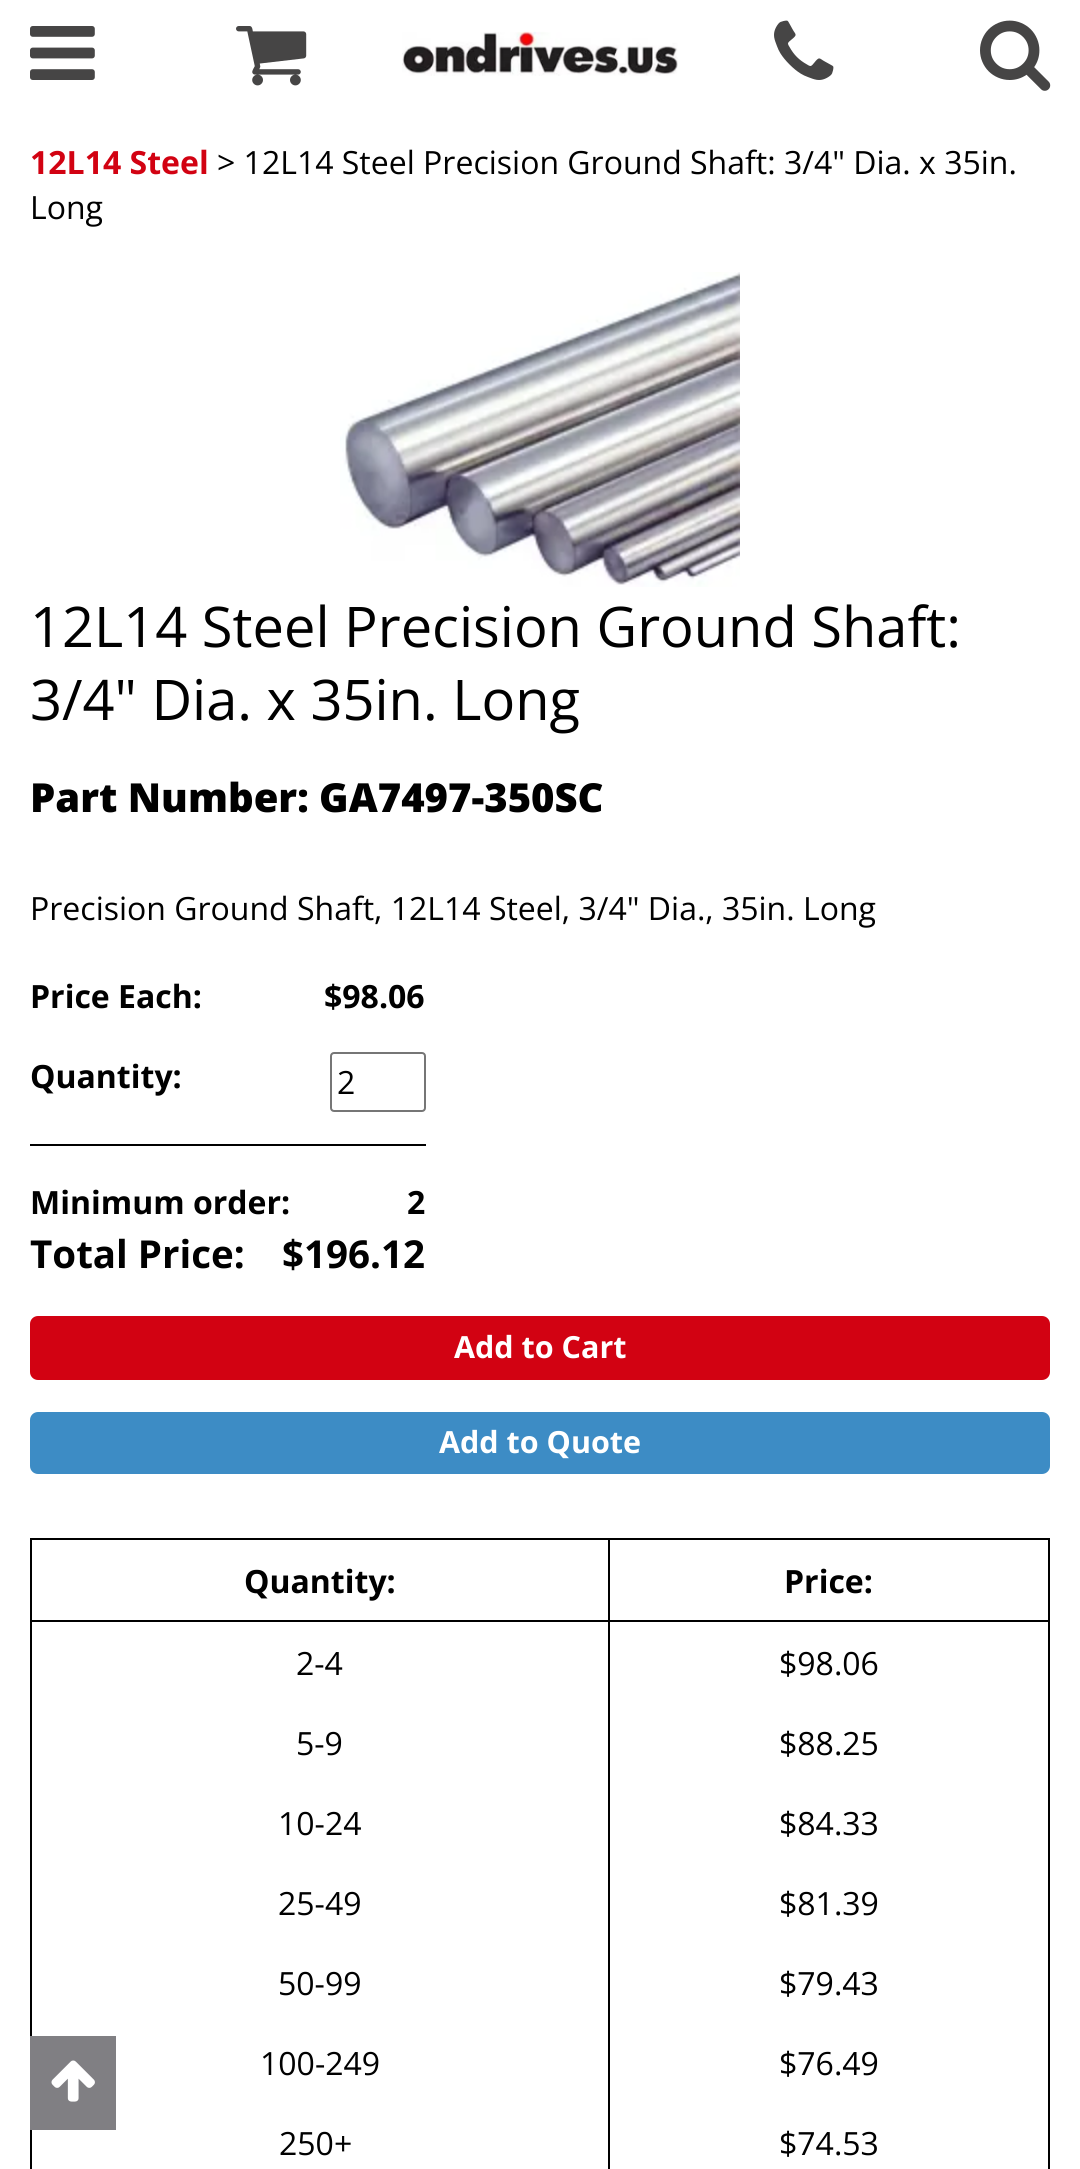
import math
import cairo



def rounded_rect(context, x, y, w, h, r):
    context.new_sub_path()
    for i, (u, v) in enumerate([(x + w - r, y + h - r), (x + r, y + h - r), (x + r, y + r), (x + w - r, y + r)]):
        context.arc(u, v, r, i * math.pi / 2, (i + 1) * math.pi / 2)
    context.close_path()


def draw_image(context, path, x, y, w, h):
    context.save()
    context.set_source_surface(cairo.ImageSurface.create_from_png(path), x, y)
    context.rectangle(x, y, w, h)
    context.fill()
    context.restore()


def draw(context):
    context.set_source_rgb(1, 1, 1)
    context.paint()
    draw_image(context, "images/1.png", 30, 26, 65, 54)
    draw_image(context, "images/2.png", 236, 26, 71, 60)
    draw_image(context, "images/3.png", 402, 31, 276, 45)
    draw_image(context, "images/4.png", 774, 20, 60, 60)
    draw_image(context, "images/5.png", 980, 20, 71, 71)
    draw_image(context, "images/6.png", 340, 272, 400, 315)
    rounded_rect(context, 331, 1053, 94, 58, 3)
    context.set_source_rgb(118 / 255, 118 / 255, 118 / 255)
    context.stroke()
    context.set_source_rgb(0, 0, 0)
    context.rectangle(30, 1144, 396, 2)
    context.fill()
    context.set_source_rgb(210 / 255, 2 / 255, 18 / 255)
    rounded_rect(context, 32, 1318, 1016, 60, 6)
    context.fill_preserve()
    context.set_line_width(4)
    context.stroke()
    context.set_source_rgb(61 / 255, 140 / 255, 197 / 255)
    rounded_rect(context, 32, 1414, 1016, 58, 6)
    context.fill_preserve()
    context.stroke()
    context.set_source_rgb(0, 0, 0)
    context.rectangle(30, 1538, 1020, 2)
    context.fill()
    context.rectangle(1048, 1538, 2, 631)
    context.fill()
    context.rectangle(30, 1538, 2, 631)
    context.fill()
    context.rectangle(608, 1620, 2, 549)
    context.fill()
    context.rectangle(608, 1620, 442, 2)
    context.fill()
    context.rectangle(608, 1538, 2, 84)
    context.fill()
    context.rectangle(30, 1620, 580, 2)
    context.fill()
    context.set_source_rgb(128 / 255, 127 / 255, 131 / 255)
    context.rectangle(30, 2036, 86, 94)
    context.fill()
    draw_image(context, "images/7.png", 51, 2060, 44, 42)
    context.select_font_face("Open Sans", cairo.FontSlant.NORMAL, cairo.FontWeight.BOLD)
    context.set_font_size(32)
    context.set_source_rgb(210 / 255, 2 / 255, 18 / 255)
    context.move_to(30, 174)
    context.show_text("12L14 Steel")
    context.select_font_face("Open Sans")
    context.set_source_rgb(0, 0, 0)
    context.move_to(217, 174)
    context.show_text("> 12L14 Steel Precision Ground Shaft: 3/4\" Dia. x 35in.")
    context.move_to(30, 219)
    context.show_text("Long")
    context.set_font_size(56)
    context.move_to(30, 647)
    context.show_text("12L14 Steel Precision Ground Shaft:")
    context.move_to(30, 720)
    context.show_text("3/4\" Dia. x 35in. Long")
    context.select_font_face("Open Sans ExtraBold")
    context.set_font_size(40)
    context.move_to(30, 812)
    context.show_text("Part Number: GA7497-350SC")
    context.select_font_face("Open Sans")
    context.set_font_size(32)
    context.move_to(30, 920)
    context.show_text("Precision Ground Shaft, 12L14 Steel, 3/4\" Dia., 35in. Long")
    context.select_font_face("Open Sans", cairo.FontSlant.NORMAL, cairo.FontWeight.BOLD)
    context.move_to(30, 1008)
    context.show_text("Price Each:")
    context.move_to(324, 1008)
    context.show_text("$98.06")
    context.move_to(30, 1088)
    context.show_text("Quantity:")
    context.select_font_face("Open Sans")
    context.move_to(337, 1094)
    context.show_text("2")
    context.select_font_face("Open Sans", cairo.FontSlant.NORMAL, cairo.FontWeight.BOLD)
    context.move_to(30, 1214)
    context.show_text("Minimum order:")
    context.move_to(407, 1214)
    context.show_text("2")
    context.set_font_size(38.5)
    context.move_to(30, 1268)
    context.show_text("Total Price:")
    context.move_to(282, 1268)
    context.show_text("$196.12")
    context.set_font_size(30.5)
    context.set_source_rgb(1, 1, 1)
    context.move_to(454, 1358)
    context.show_text("Add to Cart")
    context.move_to(439, 1453)
    context.show_text("Add to Quote")
    context.set_font_size(32)
    context.set_source_rgb(0, 0, 0)
    context.move_to(244, 1593)
    context.show_text("Quantity:")
    context.move_to(784, 1593)
    context.show_text("Price:")
    context.select_font_face("Open Sans")
    context.move_to(296, 1675)
    context.show_text("2-4")
    context.move_to(779, 1675)
    context.show_text("$98.06")
    context.move_to(296, 1755)
    context.show_text("5-9")
    context.move_to(779, 1755)
    context.show_text("$88.25")
    context.move_to(278, 1835)
    context.show_text("10-24")
    context.move_to(779, 1835)
    context.show_text("$84.33")
    context.move_to(278, 1915)
    context.show_text("25-49")
    context.move_to(779, 1915)
    context.show_text("$81.39")
    context.move_to(278, 1995)
    context.show_text("50-99")
    context.move_to(779, 1995)
    context.show_text("$79.43")
    context.move_to(260, 2075)
    context.show_text("100-249")
    context.move_to(779, 2075)
    context.show_text("$76.49")
    context.move_to(279, 2155)
    context.show_text("250+")
    context.move_to(779, 2155)
    context.show_text("$74.53")


surface = cairo.ImageSurface(cairo.Format.RGB24, 1080, 2169)
context = cairo.Context(surface)
options = cairo.FontOptions()
options.set_hint_metrics(cairo.HintMetrics.OFF)
options.set_hint_style(cairo.HintStyle.NONE)
context.set_font_options(options)
context.set_miter_limit(4)
draw(context)
surface.write_to_png("out.png")
